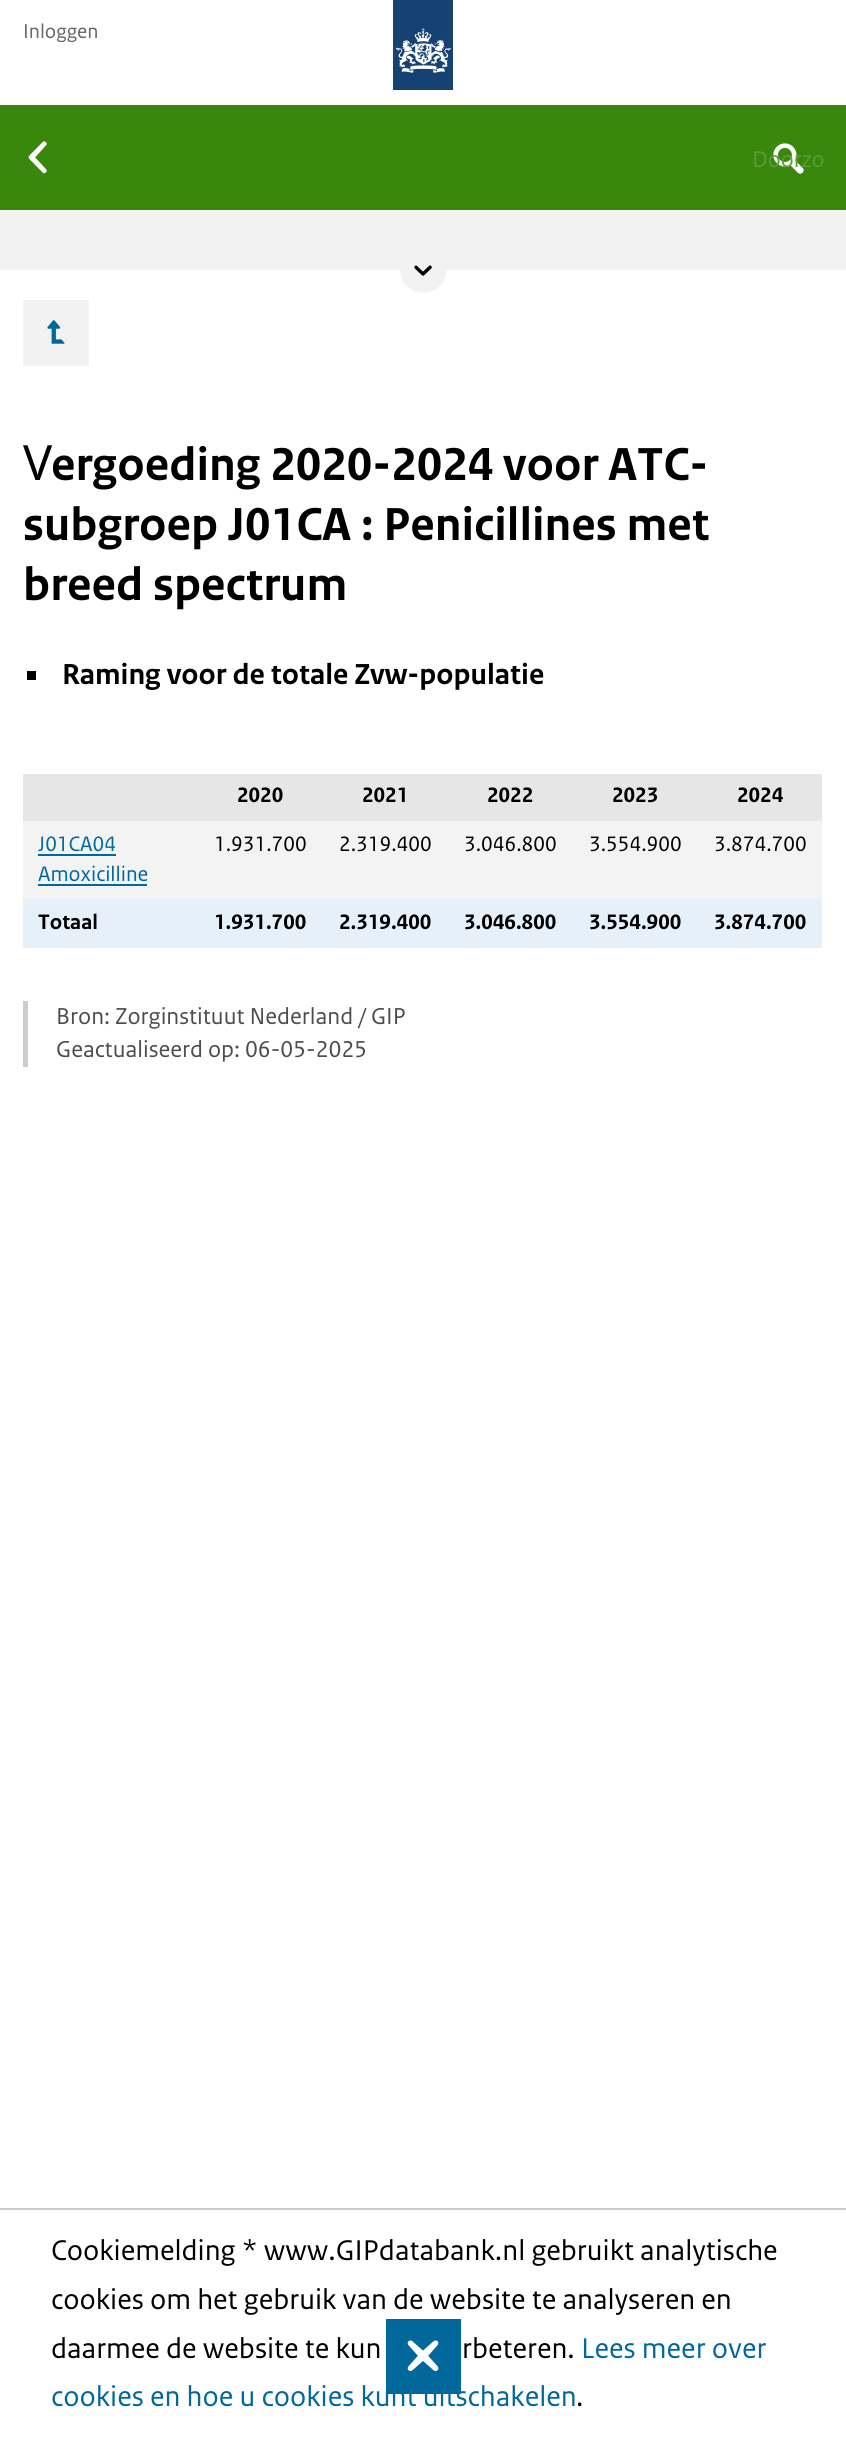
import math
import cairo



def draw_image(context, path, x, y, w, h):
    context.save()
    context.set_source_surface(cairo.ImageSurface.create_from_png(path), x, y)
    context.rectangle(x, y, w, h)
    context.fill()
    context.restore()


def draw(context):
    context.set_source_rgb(1, 1, 1)
    context.paint()
    context.set_source_rgb(21 / 255, 66 / 255, 115 / 255)
    context.rectangle(393, 0, 60, 90)
    context.fill()
    draw_image(context, "images/1.png", 396, 27, 55, 46)
    context.set_source_rgb(57 / 255, 135 / 255, 12 / 255)
    context.rectangle(0, 105, 846, 105)
    context.fill()
    draw_image(context, "images/2.png", 28, 141, 19, 33)
    draw_image(context, "images/3.png", 773, 143, 31, 31)
    context.set_source_rgb(242 / 255, 242 / 255, 242 / 255)
    context.rectangle(0, 210, 846, 60)
    context.fill()
    context.new_path()
    context.move_to(446, 270)
    context.curve_to(446, 300, 401, 300, 400, 270)
    context.curve_to(400, 240, 446, 240, 446, 270)
    context.close_path()
    context.fill()
    draw_image(context, "images/4.png", 414, 265, 18, 11)
    context.rectangle(23, 300, 66, 66)
    context.fill()
    draw_image(context, "images/5.png", 47, 320, 18, 24)
    context.set_source_rgb(0, 0, 0)
    context.rectangle(27, 671, 9, 9)
    context.fill()
    context.set_source_rgb(230 / 255, 230 / 255, 230 / 255)
    context.rectangle(23, 774, 799, 47)
    context.fill()
    context.set_source_rgb(243 / 255, 243 / 255, 243 / 255)
    context.rectangle(23, 821, 799, 78)
    context.fill()
    context.set_source_rgb(1 / 255, 104 / 255, 155 / 255)
    context.rectangle(38, 854, 78, 2)
    context.fill()
    context.rectangle(38, 884, 109, 2)
    context.fill()
    context.set_source_rgb(229 / 255, 240 / 255, 249 / 255)
    context.rectangle(23, 899, 799, 49)
    context.fill()
    context.set_source_rgb(204 / 255, 204 / 255, 204 / 255)
    context.rectangle(23, 1001, 5, 66)
    context.fill()
    context.set_source_rgb(203 / 255, 203 / 255, 203 / 255)
    context.rectangle(0, 2208, 846, 2)
    context.fill()
    context.set_source_rgb(1 / 255, 104 / 255, 155 / 255)
    context.rectangle(386, 2319, 75, 75)
    context.fill()
    draw_image(context, "images/6.png", 407, 2340, 32, 32)
    context.select_font_face("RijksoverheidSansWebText")
    context.set_font_size(21)
    context.set_source_rgb(102 / 255, 102 / 255, 102 / 255)
    context.move_to(23, 38)
    context.show_text("Inloggen")
    context.set_font_size(24)
    context.set_source_rgb(92 / 255, 156 / 255, 55 / 255)
    context.move_to(752, 167)
    context.show_text("Doorzo")
    context.select_font_face("Noto Sans")
    context.set_font_size(48.6)
    context.set_source_rgb(0, 0, 0)
    context.move_to(23, 480)
    context.show_text("V")
    context.select_font_face("RijksoverheidSansWebText", cairo.FontSlant.NORMAL, cairo.FontWeight.BOLD)
    context.move_to(51, 480)
    context.show_text("ergoeding 2020-2024 voor ATC-")
    context.move_to(23, 540)
    context.show_text("subgroep J01CA : Penicillines met")
    context.move_to(23, 600)
    context.show_text("breed spectrum")
    context.set_font_size(30.4)
    context.move_to(62, 684)
    context.show_text("Raming voor de totale Zvw-populatie")
    context.set_font_size(22)
    context.move_to(237, 802)
    context.show_text("2020")
    context.move_to(362, 802)
    context.show_text("2021")
    context.move_to(487, 802)
    context.show_text("2022")
    context.move_to(612, 802)
    context.show_text("2023")
    context.move_to(737, 802)
    context.show_text("2024")
    context.select_font_face("RijksoverheidSansWebText")
    context.set_source_rgb(1 / 255, 104 / 255, 155 / 255)
    context.move_to(38, 851)
    context.show_text("J01CA04")
    context.move_to(38, 881)
    context.show_text("Amoxicilline")
    context.set_source_rgb(0, 0, 0)
    context.move_to(214, 851)
    context.show_text("1.931.700")
    context.move_to(339, 851)
    context.show_text("2.319.400")
    context.move_to(464, 851)
    context.show_text("3.046.800")
    context.move_to(589, 851)
    context.show_text("3.554.900")
    context.move_to(714, 851)
    context.show_text("3.874.700")
    context.select_font_face("RijksoverheidSansWebText", cairo.FontSlant.NORMAL, cairo.FontWeight.BOLD)
    context.move_to(38, 929)
    context.show_text("Totaal")
    context.move_to(214, 929)
    context.show_text("1.931.700")
    context.move_to(339, 929)
    context.show_text("2.319.400")
    context.move_to(464, 929)
    context.show_text("3.046.800")
    context.move_to(589, 929)
    context.show_text("3.554.900")
    context.move_to(714, 929)
    context.show_text("3.874.700")
    context.select_font_face("RijksoverheidSansWebText")
    context.set_font_size(24.25)
    context.set_source_rgb(77 / 255, 77 / 255, 77 / 255)
    context.move_to(56, 1024)
    context.show_text("Bron: Zorginstituut Nederland / GIP")
    context.move_to(56, 1057)
    context.show_text("Geactualiseerd op: 06-05-2025")
    context.set_font_size(30)
    context.set_source_rgb(0, 0, 0)
    context.move_to(51, 2260)
    context.show_text("Cookiemelding * www.GIPdatabank.nl gebruikt analytische")
    context.move_to(51, 2309)
    context.show_text("cookies om het gebruik van de website te analyseren en")
    context.move_to(51, 2358)
    context.show_text("daarmee de website te kun")
    context.move_to(462, 2358)
    context.show_text("rbeteren.")
    context.set_source_rgb(1 / 255, 104 / 255, 155 / 255)
    context.move_to(581, 2358)
    context.show_text("Lees meer over")
    context.move_to(51, 2406)
    context.show_text("cookies en hoe u cookies kunt uitschakelen")
    context.set_source_rgb(0, 0, 0)
    context.move_to(576, 2406)
    context.show_text(".")


surface = cairo.ImageSurface(cairo.Format.RGB24, 846, 2439)
context = cairo.Context(surface)
options = cairo.FontOptions()
options.set_hint_metrics(cairo.HintMetrics.OFF)
options.set_hint_style(cairo.HintStyle.NONE)
context.set_font_options(options)
context.set_miter_limit(4)
draw(context)
surface.write_to_png("out.png")
